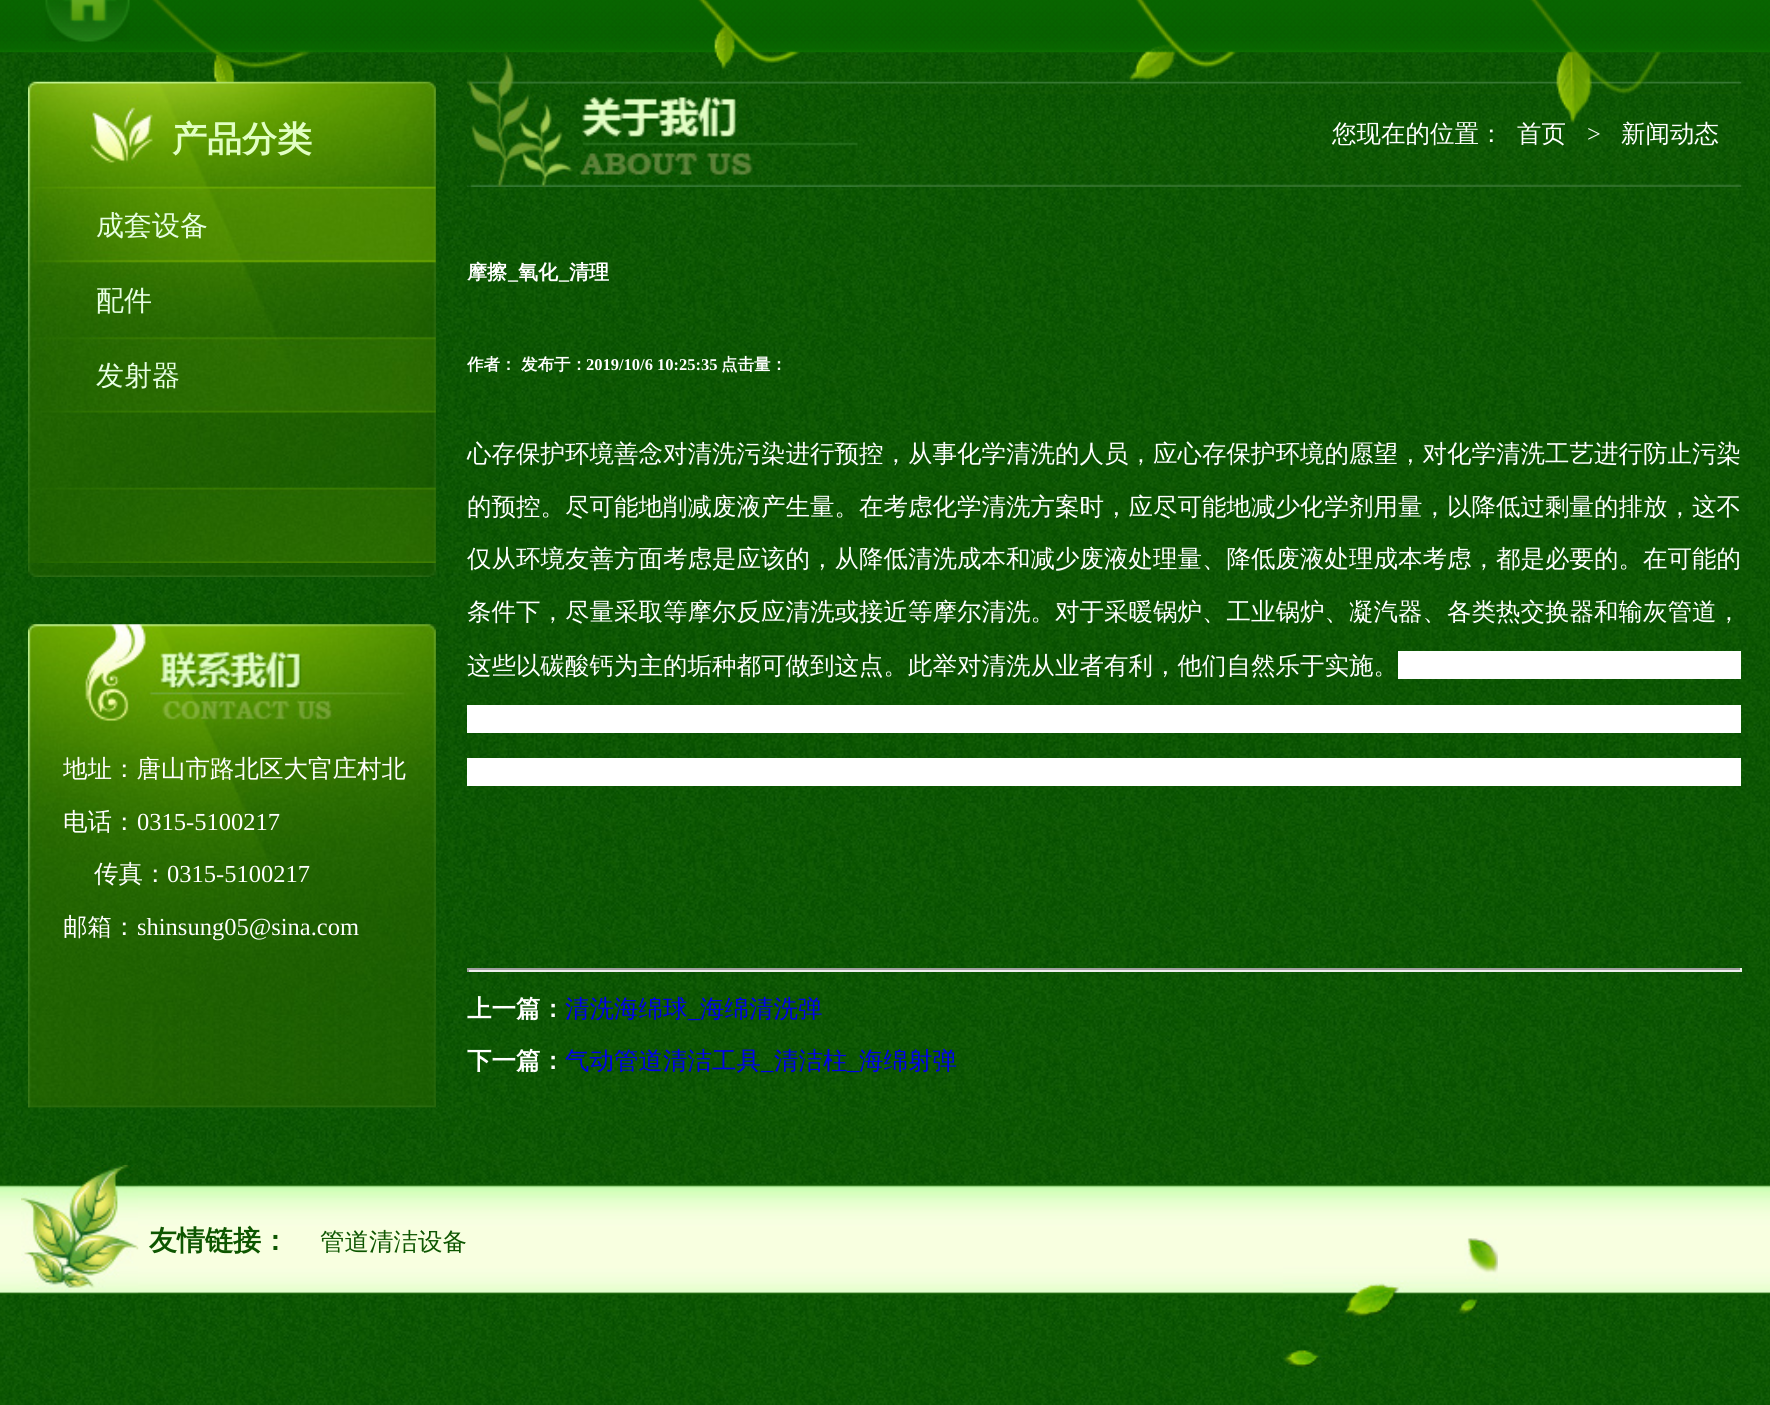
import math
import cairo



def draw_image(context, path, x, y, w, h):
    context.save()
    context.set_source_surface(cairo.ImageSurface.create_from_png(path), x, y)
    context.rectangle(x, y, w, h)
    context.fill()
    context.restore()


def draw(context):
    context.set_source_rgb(1, 1, 1)
    context.paint()
    draw_image(context, "images/1.png", 0, 52, 1770, 1353)
    draw_image(context, "images/2.png", 0, 0, 1770, 52)
    draw_image(context, "images/5.png", 28, 81, 408, 496)
    draw_image(context, "images/7.png", 28, 563, 408, 14)
    draw_image(context, "images/8.png", 28, 624, 408, 484)
    draw_image(context, "images/9.png", 28, 624, 408, 391)
    draw_image(context, "images/10.png", 28, 1098, 408, 10)
    draw_image(context, "images/11.png", 467, 81, 1275, 106)
    draw_image(context, "images/12.png", 467, 52, 391, 135)
    context.set_source_rgb(1, 1, 1)
    context.rectangle(1398, 651, 343, 28)
    context.fill()
    context.rectangle(467, 705, 1274, 28)
    context.fill()
    context.rectangle(467, 758, 1274, 28)
    context.fill()
    context.set_source_rgb(159 / 255, 159 / 255, 159 / 255)
    context.rectangle(467, 968, 1274, 2)
    context.fill()
    context.set_source_rgb(238 / 255, 238 / 255, 238 / 255)
    context.rectangle(1740, 968, 2, 4)
    context.fill()
    context.rectangle(467, 970, 1274, 2)
    context.fill()
    context.set_source_rgb(159 / 255, 159 / 255, 159 / 255)
    context.rectangle(467, 968, 2, 4)
    context.fill()
    draw_image(context, "images/13.png", 0, 1184, 1770, 111)
    draw_image(context, "images/14.png", 21, 1165, 118, 129)
    draw_image(context, "images/15.png", 1282, 1238, 216, 130)
    context.select_font_face("WenQuanYi Zen Hei Medium")
    context.set_font_size(24.5)
    context.set_source_rgb(1, 1, 1)
    context.move_to(63, 777)
    context.show_text("地址：唐山市路北区大官庄村北")
    context.move_to(63, 830)
    context.show_text("电话：")
    context.select_font_face("Liberation Serif")
    context.move_to(137, 830)
    context.show_text("0315-5100217")
    context.select_font_face("WenQuanYi Zen Hei Medium")
    context.move_to(94, 882)
    context.show_text("传真：")
    context.select_font_face("Liberation Serif")
    context.move_to(167, 882)
    context.show_text("0315-5100217")
    context.select_font_face("WenQuanYi Zen Hei Medium")
    context.move_to(63, 935)
    context.show_text("邮箱：")
    context.select_font_face("Liberation Serif")
    context.move_to(137, 935)
    context.show_text("shinsung05@sina.com")
    context.select_font_face("WenQuanYi Zen Hei Medium")
    context.move_to(1332, 142)
    context.show_text("您现在的位置：")
    context.move_to(1517, 142)
    context.show_text("首页")
    context.select_font_face("Liberation Serif")
    context.move_to(1587, 142)
    context.show_text(">")
    context.select_font_face("WenQuanYi Zen Hei Medium")
    context.move_to(1621, 142)
    context.show_text("新闻动态")
    draw_image(context, "images/3.png", 0, 0, 1770, 124)
    draw_image(context, "images/6.png", 28, 81, 408, 482)
    context.select_font_face("WenQuanYi Zen Hei", cairo.FontSlant.NORMAL, cairo.FontWeight.BOLD)
    context.set_font_size(35)
    context.set_source_rgb(225 / 255, 1, 195 / 255)
    context.move_to(172, 151)
    context.show_text("产品分类")
    context.select_font_face("WenQuanYi Zen Hei Medium")
    context.set_font_size(28)
    context.set_source_rgb(231 / 255, 1, 227 / 255)
    context.move_to(96, 385)
    context.show_text("发射器")
    context.move_to(96, 310)
    context.show_text("配件")
    context.move_to(96, 235)
    context.show_text("成套设备")
    draw_image(context, "images/4.png", 45, 0, 85, 42)
    context.select_font_face("WenQuanYi Zen Hei", cairo.FontSlant.NORMAL, cairo.FontWeight.BOLD)
    context.set_font_size(20)
    context.set_source_rgb(1, 1, 1)
    context.move_to(467, 279)
    context.show_text("摩擦")
    context.select_font_face("Liberation Serif", cairo.FontSlant.NORMAL, cairo.FontWeight.BOLD)
    context.move_to(508, 279)
    context.show_text("_")
    context.select_font_face("WenQuanYi Zen Hei", cairo.FontSlant.NORMAL, cairo.FontWeight.BOLD)
    context.move_to(518, 279)
    context.show_text("氧化")
    context.select_font_face("Liberation Serif", cairo.FontSlant.NORMAL, cairo.FontWeight.BOLD)
    context.move_to(559, 279)
    context.show_text("_")
    context.select_font_face("WenQuanYi Zen Hei", cairo.FontSlant.NORMAL, cairo.FontWeight.BOLD)
    context.move_to(569, 279)
    context.show_text("清理")
    context.set_font_size(16.5)
    context.move_to(467, 370)
    context.show_text("作者：")
    context.move_to(521, 370)
    context.show_text("发布于：")
    context.select_font_face("Liberation Serif", cairo.FontSlant.NORMAL, cairo.FontWeight.BOLD)
    context.move_to(586, 370)
    context.show_text("2019/10/6 10:25:35")
    context.select_font_face("WenQuanYi Zen Hei", cairo.FontSlant.NORMAL, cairo.FontWeight.BOLD)
    context.move_to(721, 370)
    context.show_text("点击量：")
    context.select_font_face("WenQuanYi Zen Hei Medium")
    context.set_font_size(24.5)
    context.move_to(467, 462)
    context.show_text("心存保护环境善念对清洗污染进行预控，从事化学清洗的人员，应心存保护环境的愿望，对化学清洗工艺进行防止污染")
    context.move_to(467, 515)
    context.show_text("的预控。尽可能地削减废液产生量。在考虑化学清洗方案时，应尽可能地减少化学剂用量，以降低过剩量的排放，这不")
    context.move_to(467, 567)
    context.show_text("仅从环境友善方面考虑是应该的，从降低清洗成本和减少废液处理量、降低废液处理成本考虑，都是必要的。在可能的")
    context.move_to(467, 620)
    context.show_text("条件下，尽量采取等摩尔反应清洗或接近等摩尔清洗。对于采暖锅炉、工业锅炉、凝汽器、各类热交换器和输灰管道，")
    context.move_to(467, 674)
    context.show_text("这些以碳酸钙为主的垢种都可做到这点。此举对清洗从业者有利，他们自然乐于实施。")
    context.select_font_face("WenQuanYi Zen Hei", cairo.FontSlant.NORMAL, cairo.FontWeight.BOLD)
    context.move_to(467, 1017)
    context.show_text("上一篇：")
    context.select_font_face("WenQuanYi Zen Hei Medium")
    context.set_source_rgb(0, 0, 238 / 255)
    context.move_to(565, 1017)
    context.show_text("清洗海绵球")
    context.select_font_face("Liberation Serif")
    context.move_to(688, 1017)
    context.show_text("_")
    context.select_font_face("WenQuanYi Zen Hei Medium")
    context.move_to(700, 1017)
    context.show_text("海绵清洗弹")
    context.select_font_face("WenQuanYi Zen Hei", cairo.FontSlant.NORMAL, cairo.FontWeight.BOLD)
    context.set_source_rgb(1, 1, 1)
    context.move_to(467, 1069)
    context.show_text("下一篇：")
    context.select_font_face("WenQuanYi Zen Hei Medium")
    context.set_source_rgb(0, 0, 238 / 255)
    context.move_to(565, 1069)
    context.show_text("气动管道清洁工具")
    context.select_font_face("Liberation Serif")
    context.move_to(761, 1069)
    context.show_text("_")
    context.select_font_face("WenQuanYi Zen Hei Medium")
    context.move_to(774, 1069)
    context.show_text("清洁柱")
    context.select_font_face("Liberation Serif")
    context.move_to(847, 1069)
    context.show_text("_")
    context.select_font_face("WenQuanYi Zen Hei Medium")
    context.move_to(859, 1069)
    context.show_text("海绵射弹")
    context.select_font_face("WenQuanYi Zen Hei", cairo.FontSlant.NORMAL, cairo.FontWeight.BOLD)
    context.set_font_size(28)
    context.set_source_rgb(13 / 255, 86 / 255, 0)
    context.move_to(149, 1250)
    context.show_text("友情链接：")
    context.select_font_face("WenQuanYi Zen Hei Medium")
    context.set_font_size(24.5)
    context.move_to(320, 1250)
    context.show_text("管道清洁设备")


surface = cairo.ImageSurface(cairo.Format.RGB24, 1770, 1405)
context = cairo.Context(surface)
options = cairo.FontOptions()
options.set_hint_metrics(cairo.HintMetrics.OFF)
options.set_hint_style(cairo.HintStyle.NONE)
context.set_font_options(options)
context.set_miter_limit(4)
draw(context)
surface.write_to_png("out.png")
